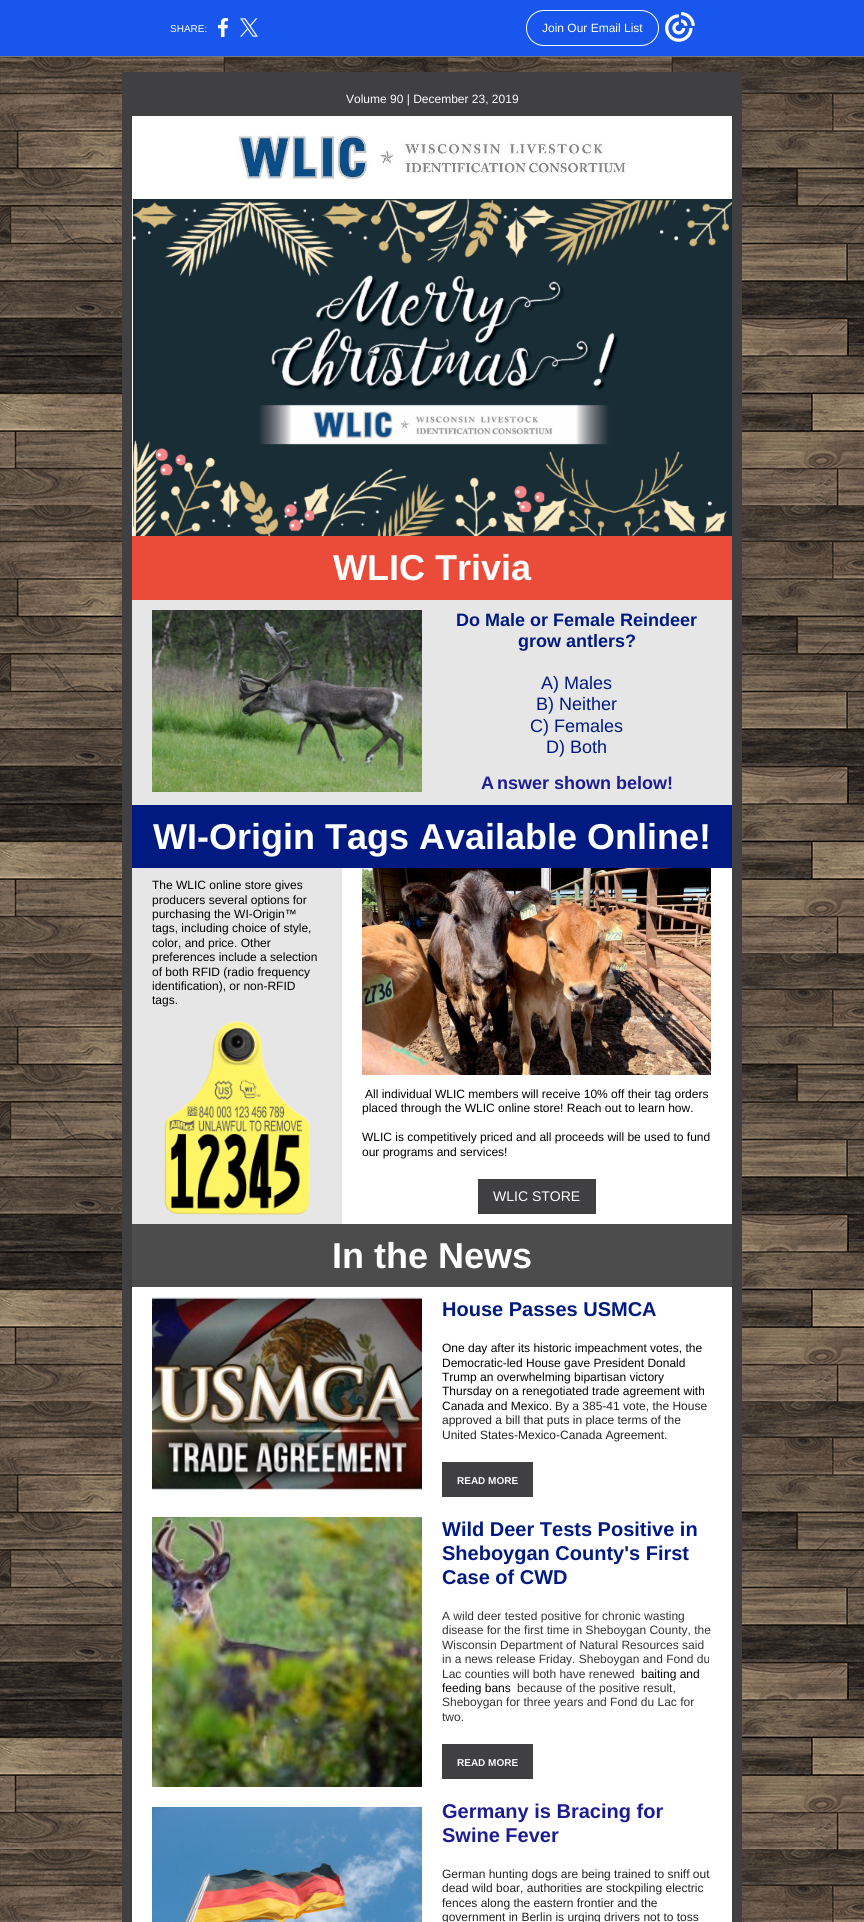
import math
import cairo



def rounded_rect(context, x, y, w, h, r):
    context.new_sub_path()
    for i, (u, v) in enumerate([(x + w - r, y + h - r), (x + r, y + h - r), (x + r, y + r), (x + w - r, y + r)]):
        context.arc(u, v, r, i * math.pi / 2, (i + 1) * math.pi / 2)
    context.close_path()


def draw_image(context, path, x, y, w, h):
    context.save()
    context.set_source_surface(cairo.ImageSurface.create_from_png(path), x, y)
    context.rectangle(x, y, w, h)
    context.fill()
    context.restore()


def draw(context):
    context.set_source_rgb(24 / 255, 86 / 255, 237 / 255)
    context.paint()
    context.set_source_rgb(122 / 255, 122 / 255, 122 / 255)
    context.rectangle(0, 56, 864, 1)
    context.fill()
    draw_image(context, "images/1.png", 218, 18, 10, 19)
    draw_image(context, "images/2.png", 240, 18, 18, 19)
    rounded_rect(context, 526.5, 10.5, 132, 35, 17.5)
    context.set_source_rgb(1, 1, 1)
    context.set_line_width(1)
    context.stroke()
    draw_image(context, "images/3.png", 665, 12, 30, 30)
    draw_image(context, "images/4.png", 0, 57, 864, 1865)
    context.set_source_rgb(64 / 255, 63 / 255, 66 / 255)
    context.rectangle(122, 72, 620, 1850)
    context.fill()
    context.set_source_rgb(1, 1, 1)
    context.rectangle(132, 116, 600, 1806)
    context.fill()
    draw_image(context, "images/5.png", 238, 134, 387, 47)
    draw_image(context, "images/6.png", 133, 199, 599, 337)
    context.set_source_rgb(235 / 255, 76 / 255, 57 / 255)
    context.rectangle(132, 536, 600, 64)
    context.fill()
    context.set_source_rgb(230 / 255, 230 / 255, 230 / 255)
    context.rectangle(132, 600, 600, 205)
    context.fill()
    draw_image(context, "images/7.png", 152, 610, 270, 182)
    context.set_source_rgb(0, 26 / 255, 129 / 255)
    context.rectangle(132, 805, 600, 63)
    context.fill()
    context.set_source_rgb(230 / 255, 230 / 255, 230 / 255)
    context.rectangle(132, 868, 210, 356)
    context.fill()
    draw_image(context, "images/8.png", 164, 1021, 146, 194)
    draw_image(context, "images/9.png", 362, 868, 349, 207)
    context.set_source_rgb(64 / 255, 63 / 255, 66 / 255)
    context.rectangle(478, 1179, 118, 35)
    context.fill()
    context.set_source_rgb(76 / 255, 76 / 255, 76 / 255)
    context.rectangle(132, 1224, 600, 63)
    context.fill()
    draw_image(context, "images/10.png", 152, 1297, 270, 193)
    context.set_source_rgb(64 / 255, 63 / 255, 66 / 255)
    context.rectangle(442, 1462, 91, 35)
    context.fill()
    draw_image(context, "images/11.png", 152, 1517, 270, 270)
    draw_image(context, "images/12.png", 152, 1807, 270, 115)
    context.rectangle(442, 1744, 91, 35)
    context.fill()
    context.select_font_face("Liberation Sans")
    context.set_font_size(10)
    context.set_source_rgb(1, 1, 1)
    context.move_to(170, 32)
    context.show_text("SHARE:")
    context.set_font_size(12)
    context.move_to(542, 32)
    context.show_text("Join Our Email List")
    context.move_to(346, 103)
    context.show_text("Volume 90 | December 23, 2019")
    context.select_font_face("Liberation Sans", cairo.FontSlant.NORMAL, cairo.FontWeight.BOLD)
    context.set_font_size(36)
    context.move_to(333, 580)
    context.show_text("WLIC Trivia")
    context.set_font_size(18)
    context.set_source_rgb(0, 26 / 255, 129 / 255)
    context.move_to(456, 626)
    context.show_text("Do Male or Female Reindeer")
    context.move_to(518, 647)
    context.show_text("grow antlers?")
    context.select_font_face("Liberation Sans")
    context.move_to(541, 689)
    context.show_text("A) Males")
    context.move_to(536, 710)
    context.show_text("B) Neither")
    context.move_to(530, 732)
    context.show_text("C) Females")
    context.move_to(546, 753)
    context.show_text("D) Both")
    context.select_font_face("Liberation Sans", cairo.FontSlant.NORMAL, cairo.FontWeight.BOLD)
    context.set_source_rgb(28 / 255, 28 / 255, 148 / 255)
    context.move_to(481, 789)
    context.show_text("A")
    context.move_to(497, 789)
    context.show_text("nswer shown below!")
    context.set_font_size(36)
    context.set_source_rgb(1, 1, 1)
    context.move_to(153, 849)
    context.show_text("WI-Origin Tags Available Online!")
    context.select_font_face("Liberation Sans")
    context.set_font_size(12)
    context.set_source_rgb(0, 0, 0)
    context.move_to(152, 889)
    context.show_text("The WLIC online store gives")
    context.move_to(152, 904)
    context.show_text("producers several options for")
    context.move_to(152, 918)
    context.show_text("purchasing the WI-Origin™")
    context.move_to(152, 932)
    context.show_text("tags, including choice of style,")
    context.move_to(152, 947)
    context.show_text("color, and price. Other")
    context.move_to(152, 961)
    context.show_text("preferences include a selection")
    context.move_to(152, 976)
    context.show_text("of both RFID (radio frequency")
    context.move_to(152, 990)
    context.show_text("identification), or non-RFID")
    context.move_to(152, 1004)
    context.show_text("tags.")
    context.move_to(365, 1098)
    context.show_text("All individual WLIC members will receive 10% off their tag orders")
    context.move_to(362, 1112)
    context.show_text("placed through the WLIC online store! Reach out to learn how.")
    context.move_to(362, 1141)
    context.show_text("WLIC is competitively priced and all proceeds will be used to fund")
    context.move_to(362, 1156)
    context.show_text("our programs and services!")
    context.set_font_size(14)
    context.set_source_rgb(1, 1, 1)
    context.move_to(493, 1201)
    context.show_text("WLIC STORE")
    context.select_font_face("Liberation Sans", cairo.FontSlant.NORMAL, cairo.FontWeight.BOLD)
    context.set_font_size(36)
    context.move_to(332, 1268)
    context.show_text("In the News")
    context.set_font_size(20)
    context.set_source_rgb(0, 26 / 255, 129 / 255)
    context.move_to(442, 1316)
    context.show_text("House Passes USMCA")
    context.select_font_face("Liberation Sans")
    context.set_font_size(12)
    context.set_source_rgb(0, 0, 0)
    context.move_to(442, 1352)
    context.show_text("One day after its historic impeachment votes, the")
    context.move_to(442, 1367)
    context.show_text("Democratic-led House gave President Donald")
    context.move_to(442, 1381)
    context.show_text("Trump an overwhelming bipartisan victory")
    context.move_to(442, 1395)
    context.show_text("Thursday on a renegotiated trade agreement with")
    context.move_to(442, 1410)
    context.show_text("Canada and Mexico.")
    context.set_source_rgb(34 / 255, 34 / 255, 34 / 255)
    context.move_to(555, 1410)
    context.show_text("By a 385-41 vote, the House")
    context.move_to(442, 1424)
    context.show_text("approved a bill that puts in place terms of the")
    context.move_to(442, 1439)
    context.show_text("United States-Mexico-Canada Agreement.")
    context.select_font_face("Liberation Sans", cairo.FontSlant.NORMAL, cairo.FontWeight.BOLD)
    context.set_font_size(10)
    context.set_source_rgb(1, 1, 1)
    context.move_to(457, 1484)
    context.show_text("READ MORE")
    context.set_font_size(20)
    context.set_source_rgb(0, 26 / 255, 129 / 255)
    context.move_to(442, 1536)
    context.show_text("Wild Deer Tests Positive in")
    context.move_to(442, 1560)
    context.show_text("Sheboygan County's First")
    context.move_to(442, 1584)
    context.show_text("Case of CWD")
    context.select_font_face("Liberation Sans")
    context.set_font_size(12)
    context.set_source_rgb(51 / 255, 51 / 255, 51 / 255)
    context.move_to(442, 1620)
    context.show_text("A wild deer tested positive for chronic wasting")
    context.move_to(442, 1634)
    context.show_text("disease for the first time in Sheboygan County, the")
    context.move_to(442, 1649)
    context.show_text("Wisconsin Department of Natural Resources said")
    context.move_to(442, 1663)
    context.show_text("in a news release Friday. Sheboygan and Fond du")
    context.move_to(442, 1678)
    context.show_text("Lac counties will both have renewed")
    context.set_source_rgb(0, 0, 0)
    context.move_to(641, 1678)
    context.show_text("baiting and")
    context.move_to(442, 1692)
    context.show_text("feeding bans")
    context.set_source_rgb(51 / 255, 51 / 255, 51 / 255)
    context.move_to(517, 1692)
    context.show_text("because of the positive result,")
    context.move_to(442, 1706)
    context.show_text("Sheboygan for three years and Fond du Lac for")
    context.move_to(442, 1721)
    context.show_text("two.")
    context.select_font_face("Liberation Sans", cairo.FontSlant.NORMAL, cairo.FontWeight.BOLD)
    context.set_font_size(10)
    context.set_source_rgb(1, 1, 1)
    context.move_to(457, 1766)
    context.show_text("READ MORE")
    context.set_font_size(20)
    context.set_source_rgb(28 / 255, 28 / 255, 148 / 255)
    context.move_to(442, 1818)
    context.show_text("Germany is Bracing for")
    context.move_to(442, 1842)
    context.show_text("Swine Fever")
    context.select_font_face("Liberation Sans")
    context.set_font_size(12)
    context.set_source_rgb(34 / 255, 34 / 255, 34 / 255)
    context.move_to(442, 1878)
    context.show_text("German hunting dogs are being trained to sniff out")
    context.move_to(442, 1892)
    context.show_text("dead wild boar, authorities are stockpiling electric")
    context.move_to(442, 1907)
    context.show_text("fences along the eastern frontier and the")
    context.move_to(442, 1921)
    context.show_text("government in Berlin is urging drivers not to toss")


surface = cairo.ImageSurface(cairo.Format.RGB24, 864, 1922)
context = cairo.Context(surface)
options = cairo.FontOptions()
options.set_hint_metrics(cairo.HintMetrics.OFF)
options.set_hint_style(cairo.HintStyle.NONE)
context.set_font_options(options)
context.set_miter_limit(4)
draw(context)
surface.write_to_png("out.png")
